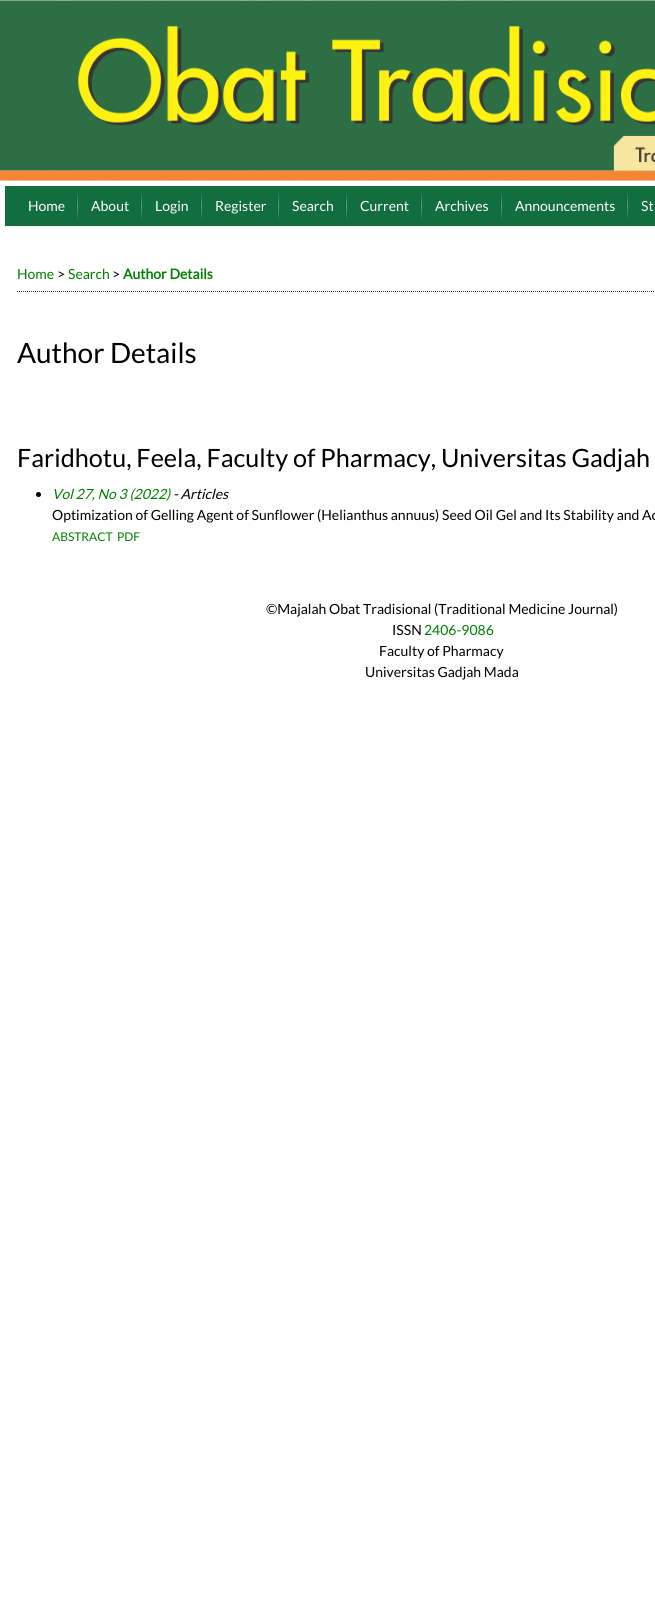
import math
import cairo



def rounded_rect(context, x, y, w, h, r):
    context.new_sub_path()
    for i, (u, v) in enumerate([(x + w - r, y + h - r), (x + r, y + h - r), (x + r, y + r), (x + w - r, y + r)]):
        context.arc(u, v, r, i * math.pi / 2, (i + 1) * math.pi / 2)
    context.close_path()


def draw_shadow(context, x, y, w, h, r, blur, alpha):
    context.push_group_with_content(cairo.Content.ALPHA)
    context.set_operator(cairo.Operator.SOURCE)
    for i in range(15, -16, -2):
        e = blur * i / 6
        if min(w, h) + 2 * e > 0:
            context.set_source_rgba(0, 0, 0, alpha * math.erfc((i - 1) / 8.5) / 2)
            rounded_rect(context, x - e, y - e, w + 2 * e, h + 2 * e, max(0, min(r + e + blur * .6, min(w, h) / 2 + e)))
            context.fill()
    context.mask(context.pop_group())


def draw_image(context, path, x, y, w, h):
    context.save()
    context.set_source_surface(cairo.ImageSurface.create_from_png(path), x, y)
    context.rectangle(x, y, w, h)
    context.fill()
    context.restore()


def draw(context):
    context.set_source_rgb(1, 1, 1)
    context.paint()
    draw_image(context, "images/1.png", 0, 0, 655, 181)
    draw_image(context, "images/2.png", 0, 0, 655, 181)
    context.set_source_rgb(51 / 255, 51 / 255, 51 / 255)
    draw_shadow(context, 2, 185, 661, 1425, 0, 2.5, 1)
    context.set_source_rgb(1, 1, 1)
    context.rectangle(0, 181, 655, 1421)
    context.fill()
    context.set_source_rgb(17 / 255, 110 / 255, 62 / 255)
    context.rectangle(5, 186, 650, 40)
    context.fill()
    gradient = cairo.LinearGradient(77, 191, 77, 221)
    gradient.add_color_stop_rgba(0, 17 / 255, 110 / 255, 62 / 255, 1)
    gradient.add_color_stop_rgba(0.5, 14 / 255, 94 / 255, 53 / 255, 1)
    gradient.add_color_stop_rgba(1, 17 / 255, 110 / 255, 62 / 255, 1)
    context.set_source(gradient)
    context.rectangle(76, 191, 1, 30)
    context.fill()
    gradient = cairo.LinearGradient(78, 191, 78, 221)
    gradient.add_color_stop_rgba(0, 17 / 255, 110 / 255, 62 / 255, 1)
    gradient.add_color_stop_rgba(0.5, 100 / 255, 161 / 255, 130 / 255, 1)
    gradient.add_color_stop_rgba(1, 17 / 255, 110 / 255, 62 / 255, 1)
    context.set_source(gradient)
    context.rectangle(77, 191, 1, 30)
    context.fill()
    gradient = cairo.LinearGradient(141, 191, 141, 221)
    gradient.add_color_stop_rgba(0, 17 / 255, 110 / 255, 62 / 255, 1)
    gradient.add_color_stop_rgba(0.5, 14 / 255, 94 / 255, 53 / 255, 1)
    gradient.add_color_stop_rgba(1, 17 / 255, 110 / 255, 62 / 255, 1)
    context.set_source(gradient)
    context.rectangle(140, 191, 1, 30)
    context.fill()
    gradient = cairo.LinearGradient(142, 191, 142, 221)
    gradient.add_color_stop_rgba(0, 17 / 255, 110 / 255, 62 / 255, 1)
    gradient.add_color_stop_rgba(0.5, 100 / 255, 161 / 255, 130 / 255, 1)
    gradient.add_color_stop_rgba(1, 17 / 255, 110 / 255, 62 / 255, 1)
    context.set_source(gradient)
    context.rectangle(141, 191, 1, 30)
    context.fill()
    gradient = cairo.LinearGradient(201, 191, 201, 221)
    gradient.add_color_stop_rgba(0, 17 / 255, 110 / 255, 62 / 255, 1)
    gradient.add_color_stop_rgba(0.5, 14 / 255, 94 / 255, 53 / 255, 1)
    gradient.add_color_stop_rgba(1, 17 / 255, 110 / 255, 62 / 255, 1)
    context.set_source(gradient)
    context.rectangle(200, 191, 1, 30)
    context.fill()
    gradient = cairo.LinearGradient(202, 191, 202, 221)
    gradient.add_color_stop_rgba(0, 17 / 255, 110 / 255, 62 / 255, 1)
    gradient.add_color_stop_rgba(0.5, 100 / 255, 161 / 255, 130 / 255, 1)
    gradient.add_color_stop_rgba(1, 17 / 255, 110 / 255, 62 / 255, 1)
    context.set_source(gradient)
    context.rectangle(201, 191, 1, 30)
    context.fill()
    gradient = cairo.LinearGradient(278, 191, 278, 221)
    gradient.add_color_stop_rgba(0, 17 / 255, 110 / 255, 62 / 255, 1)
    gradient.add_color_stop_rgba(0.5, 14 / 255, 94 / 255, 53 / 255, 1)
    gradient.add_color_stop_rgba(1, 17 / 255, 110 / 255, 62 / 255, 1)
    context.set_source(gradient)
    context.rectangle(277, 191, 1, 30)
    context.fill()
    gradient = cairo.LinearGradient(279, 191, 279, 221)
    gradient.add_color_stop_rgba(0, 17 / 255, 110 / 255, 62 / 255, 1)
    gradient.add_color_stop_rgba(0.5, 100 / 255, 161 / 255, 130 / 255, 1)
    gradient.add_color_stop_rgba(1, 17 / 255, 110 / 255, 62 / 255, 1)
    context.set_source(gradient)
    context.rectangle(278, 191, 1, 30)
    context.fill()
    gradient = cairo.LinearGradient(346, 191, 346, 221)
    gradient.add_color_stop_rgba(0, 17 / 255, 110 / 255, 62 / 255, 1)
    gradient.add_color_stop_rgba(0.5, 14 / 255, 94 / 255, 53 / 255, 1)
    gradient.add_color_stop_rgba(1, 17 / 255, 110 / 255, 62 / 255, 1)
    context.set_source(gradient)
    context.rectangle(345, 191, 1, 30)
    context.fill()
    gradient = cairo.LinearGradient(347, 191, 347, 221)
    gradient.add_color_stop_rgba(0, 17 / 255, 110 / 255, 62 / 255, 1)
    gradient.add_color_stop_rgba(0.5, 100 / 255, 161 / 255, 130 / 255, 1)
    gradient.add_color_stop_rgba(1, 17 / 255, 110 / 255, 62 / 255, 1)
    context.set_source(gradient)
    context.rectangle(346, 191, 1, 30)
    context.fill()
    gradient = cairo.LinearGradient(421, 191, 421, 221)
    gradient.add_color_stop_rgba(0, 17 / 255, 110 / 255, 62 / 255, 1)
    gradient.add_color_stop_rgba(0.5, 14 / 255, 94 / 255, 53 / 255, 1)
    gradient.add_color_stop_rgba(1, 17 / 255, 110 / 255, 62 / 255, 1)
    context.set_source(gradient)
    context.rectangle(420, 191, 1, 30)
    context.fill()
    gradient = cairo.LinearGradient(422, 191, 422, 221)
    gradient.add_color_stop_rgba(0, 17 / 255, 110 / 255, 62 / 255, 1)
    gradient.add_color_stop_rgba(0.5, 100 / 255, 161 / 255, 130 / 255, 1)
    gradient.add_color_stop_rgba(1, 17 / 255, 110 / 255, 62 / 255, 1)
    context.set_source(gradient)
    context.rectangle(421, 191, 1, 30)
    context.fill()
    gradient = cairo.LinearGradient(501, 191, 501, 221)
    gradient.add_color_stop_rgba(0, 17 / 255, 110 / 255, 62 / 255, 1)
    gradient.add_color_stop_rgba(0.5, 14 / 255, 94 / 255, 53 / 255, 1)
    gradient.add_color_stop_rgba(1, 17 / 255, 110 / 255, 62 / 255, 1)
    context.set_source(gradient)
    context.rectangle(500, 191, 1, 30)
    context.fill()
    gradient = cairo.LinearGradient(502, 191, 502, 221)
    gradient.add_color_stop_rgba(0, 17 / 255, 110 / 255, 62 / 255, 1)
    gradient.add_color_stop_rgba(0.5, 100 / 255, 161 / 255, 130 / 255, 1)
    gradient.add_color_stop_rgba(1, 17 / 255, 110 / 255, 62 / 255, 1)
    context.set_source(gradient)
    context.rectangle(501, 191, 1, 30)
    context.fill()
    gradient = cairo.LinearGradient(627, 191, 627, 221)
    gradient.add_color_stop_rgba(0, 17 / 255, 110 / 255, 62 / 255, 1)
    gradient.add_color_stop_rgba(0.5, 14 / 255, 94 / 255, 53 / 255, 1)
    gradient.add_color_stop_rgba(1, 17 / 255, 110 / 255, 62 / 255, 1)
    context.set_source(gradient)
    context.rectangle(626, 191, 1, 30)
    context.fill()
    gradient = cairo.LinearGradient(628, 191, 628, 221)
    gradient.add_color_stop_rgba(0, 17 / 255, 110 / 255, 62 / 255, 1)
    gradient.add_color_stop_rgba(0.5, 100 / 255, 161 / 255, 130 / 255, 1)
    gradient.add_color_stop_rgba(1, 17 / 255, 110 / 255, 62 / 255, 1)
    context.set_source(gradient)
    context.rectangle(627, 191, 1, 30)
    context.fill()
    context.new_path()
    context.move_to(17, 291.5)
    context.line_to(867, 291.5)
    context.set_source_rgb(51 / 255, 51 / 255, 51 / 255)
    context.set_line_width(1)
    context.set_dash([1, 1])
    context.stroke()
    context.set_source_rgb(0, 0, 0)
    context.arc(38.5, 494.5, 2.5, 0, 2 * math.pi)
    context.fill()
    context.select_font_face("Lato")
    context.set_font_size(14)
    context.set_source_rgb(1, 1, 1)
    context.move_to(28, 211)
    context.show_text("Home")
    context.move_to(91, 211)
    context.show_text("About")
    context.move_to(155, 211)
    context.show_text("Login")
    context.move_to(215, 211)
    context.show_text("Register")
    context.move_to(292, 211)
    context.show_text("Search")
    context.move_to(360, 211)
    context.show_text("Current")
    context.move_to(435, 211)
    context.show_text("Archives")
    context.move_to(515, 211)
    context.show_text("Announcements")
    context.move_to(641, 211)
    context.show_text("St")
    context.set_source_rgb(0, 128 / 255, 0)
    context.move_to(17, 279)
    context.show_text("Home")
    context.set_source_rgb(0, 0, 0)
    context.move_to(57, 279)
    context.show_text(">")
    context.set_source_rgb(0, 128 / 255, 0)
    context.move_to(68, 279)
    context.show_text("Search")
    context.set_source_rgb(0, 0, 0)
    context.move_to(112, 279)
    context.show_text(">")
    context.select_font_face("Lato", cairo.FontSlant.NORMAL, cairo.FontWeight.BOLD)
    context.set_source_rgb(0, 128 / 255, 0)
    context.move_to(123, 279)
    context.show_text("Author Details")
    context.select_font_face("Lato")
    context.set_font_size(28)
    context.set_source_rgb(0, 0, 0)
    context.move_to(17, 363)
    context.show_text("Author Details")
    context.set_font_size(25.2)
    context.move_to(17, 467)
    context.show_text("Faridhotu, Feela, Faculty of Pharmacy, Universitas Gadjah")
    context.select_font_face("Lato", cairo.FontSlant.ITALIC)
    context.set_font_size(14)
    context.set_source_rgb(0, 128 / 255, 0)
    context.move_to(52, 499)
    context.show_text("Vol 27, No 3 (2022)")
    context.set_source_rgb(0, 0, 0)
    context.move_to(173, 499)
    context.show_text("- Articles")
    context.select_font_face("Lato")
    context.move_to(52, 520)
    context.show_text("Optimization of Gelling Agent of Sunflower (Helianthus annuus) Seed Oil Gel and Its Stability and Ac")
    context.set_font_size(12)
    context.set_source_rgb(0, 128 / 255, 0)
    context.move_to(52, 541)
    context.show_text("ABSTRACT")
    context.move_to(117, 541)
    context.show_text("PDF")
    context.set_font_size(14)
    context.set_source_rgb(0, 0, 0)
    context.move_to(266, 614)
    context.show_text("©Majalah Obat Tradisional (Traditional Medicine Journal)")
    context.move_to(392, 635)
    context.show_text("ISSN")
    context.set_source_rgb(0, 128 / 255, 0)
    context.move_to(424, 635)
    context.show_text("2406-9086")
    context.set_source_rgb(0, 0, 0)
    context.move_to(379, 656)
    context.show_text("Faculty of Pharmacy")
    context.move_to(365, 677)
    context.show_text("Universitas Gadjah Mada")


surface = cairo.ImageSurface(cairo.Format.RGB24, 655, 1602)
context = cairo.Context(surface)
options = cairo.FontOptions()
options.set_hint_metrics(cairo.HintMetrics.OFF)
options.set_hint_style(cairo.HintStyle.NONE)
context.set_font_options(options)
context.set_miter_limit(4)
draw(context)
surface.write_to_png("out.png")
